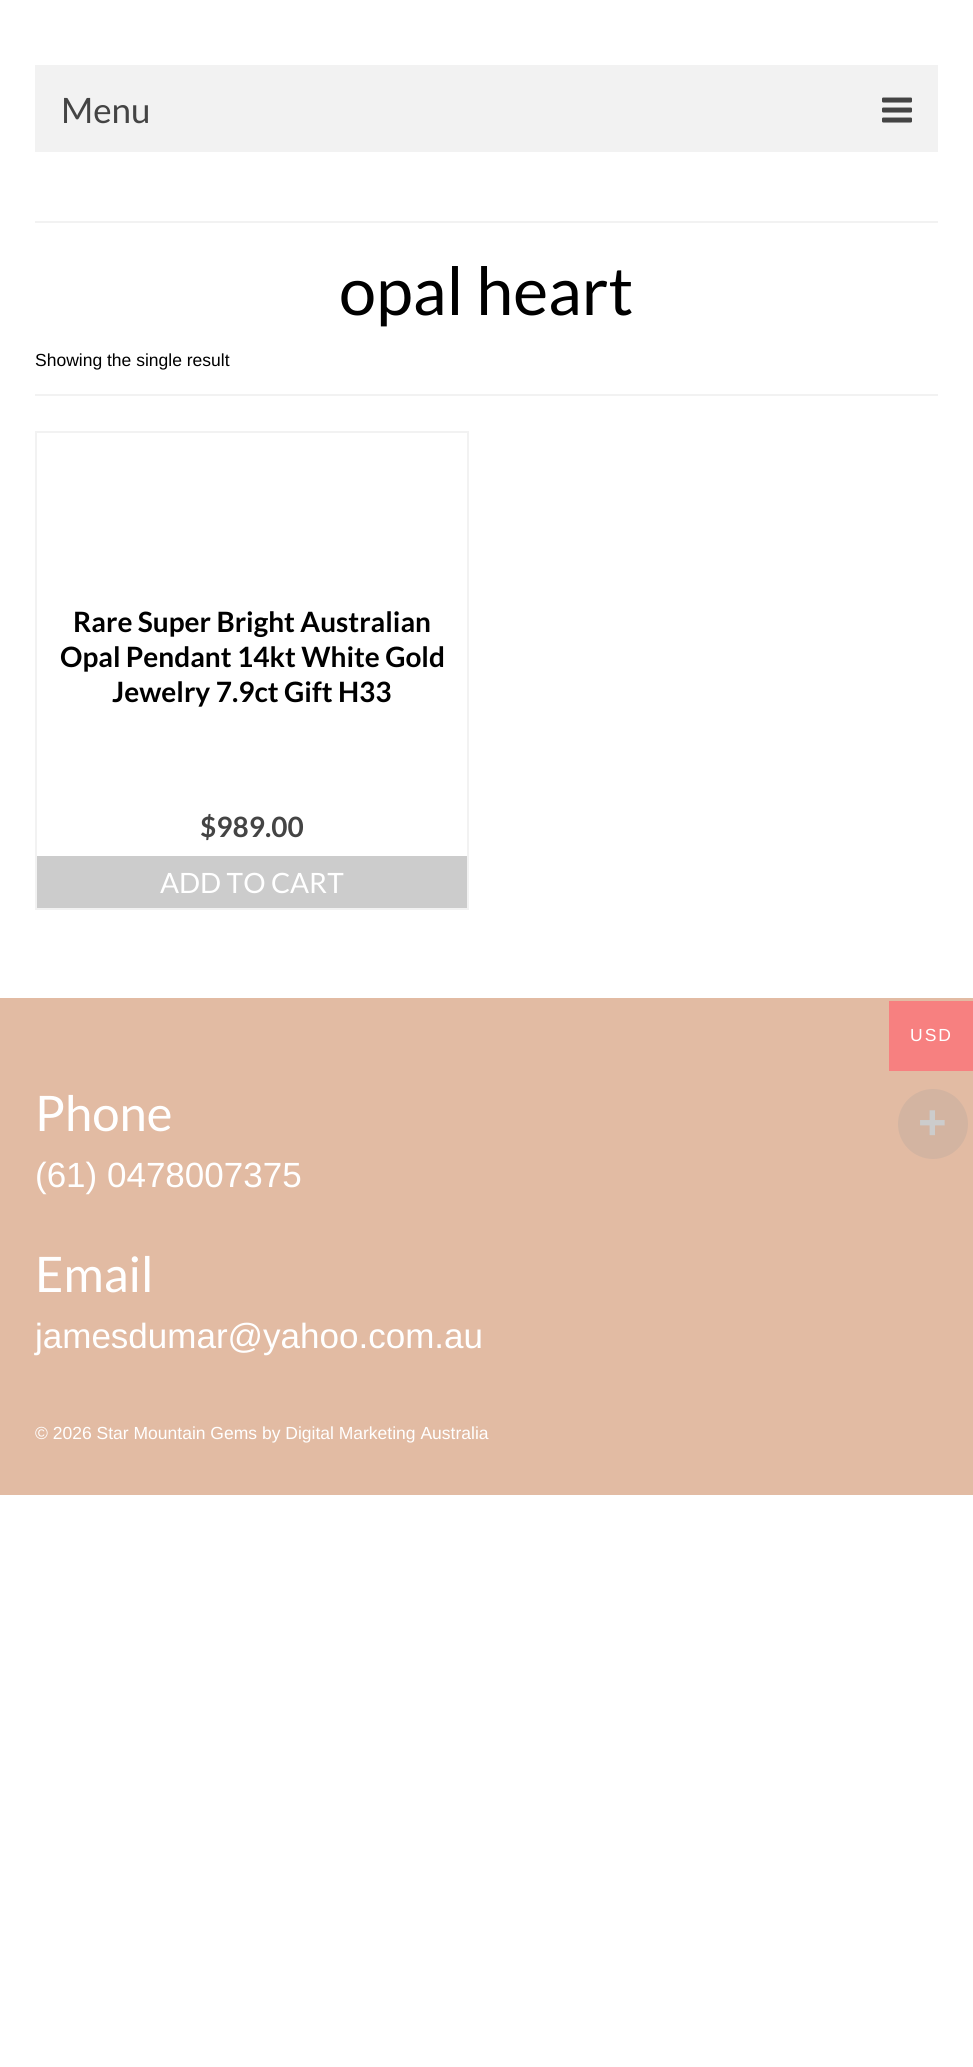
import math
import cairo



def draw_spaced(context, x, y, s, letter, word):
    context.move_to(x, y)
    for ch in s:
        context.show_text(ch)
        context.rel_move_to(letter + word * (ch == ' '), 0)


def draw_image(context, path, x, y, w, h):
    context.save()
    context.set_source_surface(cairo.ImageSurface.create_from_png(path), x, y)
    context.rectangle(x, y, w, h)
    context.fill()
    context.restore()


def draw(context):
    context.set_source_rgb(1, 1, 1)
    context.paint()
    context.set_source_rgb(242 / 255, 242 / 255, 242 / 255)
    context.rectangle(35, 65, 903, 87)
    context.fill()
    draw_image(context, "images/1.png", 882, 97, 30, 26)
    context.rectangle(35, 221, 903, 2)
    context.fill()
    context.rectangle(35, 394, 903, 2)
    context.fill()
    context.rectangle(36, 432, 432, 477)
    context.stroke()
    context.set_source_rgb(204 / 255, 204 / 255, 204 / 255)
    context.rectangle(37, 856, 430, 52)
    context.fill()
    context.set_source_rgb(226 / 255, 187 / 255, 163 / 255)
    context.rectangle(0, 998, 973, 497)
    context.fill()
    context.set_source_rgb(247 / 255, 128 / 255, 128 / 255)
    context.rectangle(889, 1001, 84, 70)
    context.fill()
    context.set_source_rgb(211 / 255, 180 / 255, 161 / 255)
    context.arc(933, 1124, 35, 0, 2 * math.pi)
    context.fill()
    context.select_font_face("Lato")
    context.set_font_size(35)
    context.set_source_rgb(68 / 255, 68 / 255, 68 / 255)
    context.move_to(61, 123)
    context.show_text("Menu")
    context.set_font_size(66.5)
    context.set_source_rgb(0, 0, 0)
    context.move_to(339, 315)
    context.show_text("opal heart")
    context.select_font_face("Liberation Sans")
    context.set_font_size(17.5)
    context.move_to(35, 366)
    context.show_text("Showing the single result")
    context.select_font_face("Lato", cairo.FontSlant.NORMAL, cairo.FontWeight.BOLD)
    context.set_font_size(28)
    context.move_to(73, 632)
    context.show_text("Rare Super Bright Australian")
    context.move_to(60, 667)
    context.show_text("Opal Pendant 14kt White Gold")
    context.move_to(112, 702)
    context.show_text("Jewelry 7.9ct Gift H33")
    context.set_source_rgb(68 / 255, 68 / 255, 68 / 255)
    context.move_to(200, 837)
    context.show_text("$989.00")
    context.select_font_face("Lato")
    context.set_source_rgb(1, 1, 1)
    context.move_to(160, 893)
    context.show_text("ADD TO CART")
    context.set_font_size(49)
    context.move_to(35, 1131)
    context.show_text("Phone")
    context.select_font_face("Liberation Sans")
    context.set_font_size(35)
    context.move_to(35, 1187)
    context.show_text("(61) 0478007375")
    context.select_font_face("Lato")
    context.set_font_size(49)
    context.move_to(35, 1292)
    context.show_text("Email")
    context.select_font_face("Liberation Sans")
    context.set_font_size(35)
    context.move_to(35, 1348)
    context.show_text("jamesdumar@yahoo.com.au")
    context.set_font_size(17.5)
    context.move_to(35, 1439)
    context.show_text("© 2026 Star Mountain Gems by Digital Marketing Australia")
    draw_spaced(context, 910, 1041, "USD", 2, 0)
    context.select_font_face("Liberation Sans", cairo.FontSlant.NORMAL, cairo.FontWeight.BOLD)
    context.set_font_size(49)
    context.set_source_rgb(204 / 255, 204 / 255, 204 / 255)
    context.move_to(918, 1139)
    context.show_text("+")


surface = cairo.ImageSurface(cairo.Format.RGB24, 973, 2067)
context = cairo.Context(surface)
options = cairo.FontOptions()
options.set_hint_metrics(cairo.HintMetrics.OFF)
options.set_hint_style(cairo.HintStyle.NONE)
context.set_font_options(options)
context.set_miter_limit(4)
draw(context)
surface.write_to_png("out.png")
